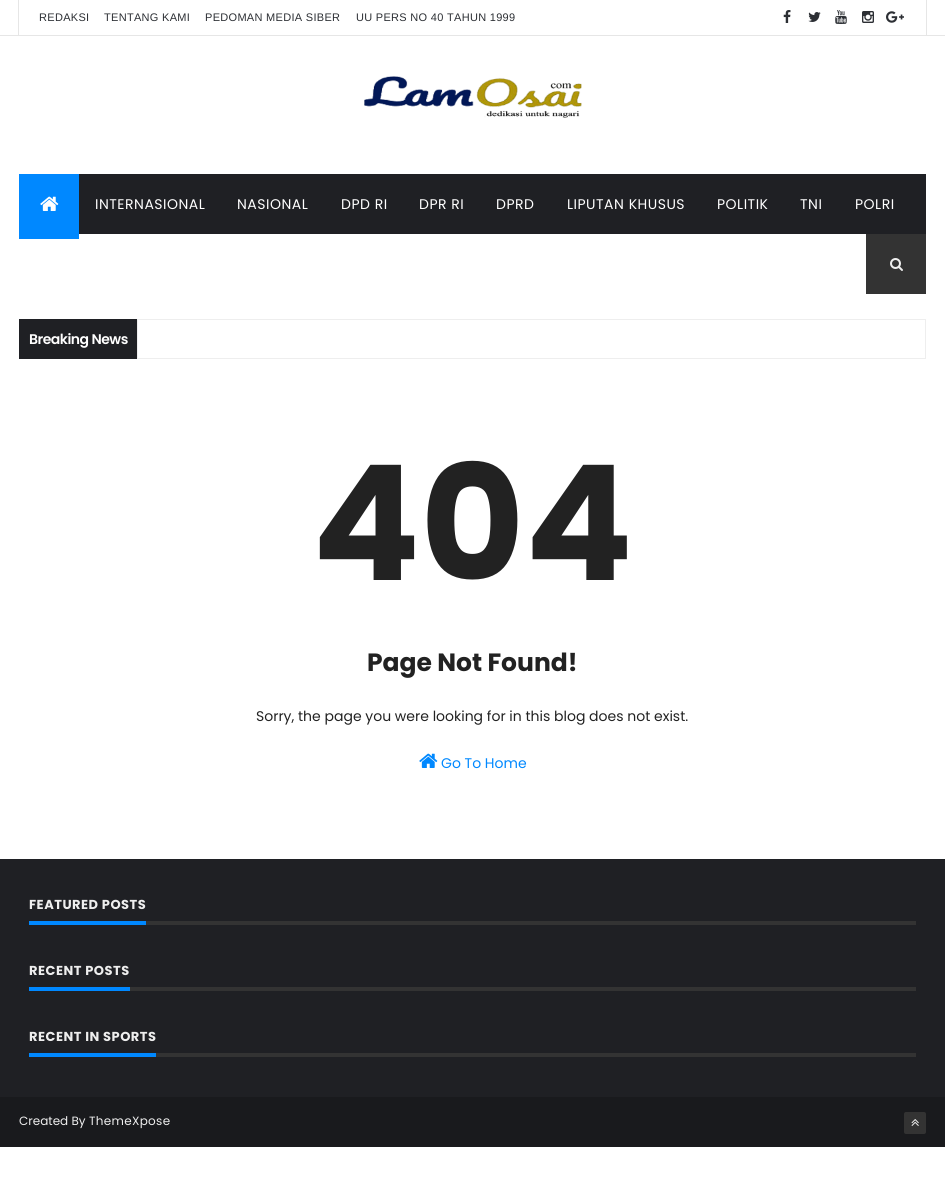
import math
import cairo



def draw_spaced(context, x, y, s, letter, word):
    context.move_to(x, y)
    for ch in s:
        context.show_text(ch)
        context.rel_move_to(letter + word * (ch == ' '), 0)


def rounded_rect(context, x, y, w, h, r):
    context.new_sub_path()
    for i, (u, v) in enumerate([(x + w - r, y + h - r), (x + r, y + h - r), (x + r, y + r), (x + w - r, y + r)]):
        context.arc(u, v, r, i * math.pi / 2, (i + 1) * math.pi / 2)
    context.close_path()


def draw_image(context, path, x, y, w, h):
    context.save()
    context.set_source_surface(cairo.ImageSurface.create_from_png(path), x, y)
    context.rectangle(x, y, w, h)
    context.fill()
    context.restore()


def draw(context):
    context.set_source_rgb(1, 1, 1)
    context.paint()
    context.set_source_rgb(230 / 255, 230 / 255, 230 / 255)
    context.rectangle(0, 35, 945, 1)
    context.fill()
    context.rectangle(926, 0, 1, 35)
    context.fill()
    context.rectangle(18, 0, 1, 35)
    context.fill()
    draw_image(context, "images/1.png", 783, 10, 8, 13)
    draw_image(context, "images/2.png", 808, 12, 13, 10)
    draw_image(context, "images/3.png", 835, 10, 12, 14)
    draw_image(context, "images/4.png", 862, 11, 12, 12)
    draw_image(context, "images/5.png", 886, 11, 18, 12)
    draw_image(context, "images/6.png", 364, 76, 218, 42)
    context.set_source_rgb(31 / 255, 32 / 255, 36 / 255)
    context.rectangle(79, 174, 847, 60)
    context.fill()
    context.set_source_rgb(0, 136 / 255, 1)
    context.rectangle(19, 174, 60, 65)
    context.fill()
    draw_image(context, "images/7.png", 40, 196, 19, 15)
    context.set_source_rgb(51 / 255, 51 / 255, 51 / 255)
    context.rectangle(866, 234, 60, 60)
    context.fill()
    draw_image(context, "images/8.png", 890, 258, 13, 13)
    context.set_source_rgb(31 / 255, 32 / 255, 36 / 255)
    context.rectangle(19, 319, 118, 40)
    context.fill()
    context.rectangle(137.5, 319.5, 788, 39)
    context.set_source_rgb(238 / 255, 238 / 255, 238 / 255)
    context.set_line_width(1)
    context.stroke()
    draw_image(context, "images/9.png", 419, 753, 19, 15)
    context.set_source_rgb(31 / 255, 32 / 255, 36 / 255)
    context.rectangle(0, 859, 945, 238)
    context.fill()
    context.set_source_rgb(51 / 255, 51 / 255, 51 / 255)
    context.rectangle(146, 921, 770, 4)
    context.fill()
    context.set_source_rgb(0, 136 / 255, 1)
    context.rectangle(29, 921, 117, 4)
    context.fill()
    context.set_source_rgb(51 / 255, 51 / 255, 51 / 255)
    context.rectangle(130, 987, 786, 4)
    context.fill()
    context.set_source_rgb(0, 136 / 255, 1)
    context.rectangle(29, 987, 101, 4)
    context.fill()
    context.set_source_rgb(51 / 255, 51 / 255, 51 / 255)
    context.rectangle(156, 1053, 760, 4)
    context.fill()
    context.set_source_rgb(0, 136 / 255, 1)
    context.rectangle(29, 1053, 127, 4)
    context.fill()
    context.set_source_rgb(25 / 255, 26 / 255, 29 / 255)
    context.rectangle(0, 1097, 945, 50)
    context.fill()
    context.set_source_rgb(51 / 255, 51 / 255, 51 / 255)
    rounded_rect(context, 904, 1112, 22, 22, 2)
    context.fill()
    draw_image(context, "images/10.png", 911, 1119, 8, 7)
    context.select_font_face("Liberation Sans")
    context.set_font_size(11)
    context.set_source_rgb(44 / 255, 47 / 255, 52 / 255)
    draw_spaced(context, 39, 21, "REDAKSI", 0.3, 0)
    draw_spaced(context, 104, 21, "TENTANG KAMI", 0.3, 0)
    draw_spaced(context, 205, 21, "PEDOMAN MEDIA SIBER", 0.3, 0)
    draw_spaced(context, 356, 21, "UU PERS NO 40 TAHUN 1999", 0.3, 0)
    context.select_font_face("Poppins")
    context.set_font_size(14)
    context.set_source_rgb(1, 1, 1)
    draw_spaced(context, 95, 209, "INTERNASIONAL", 0.5, 0)
    draw_spaced(context, 237, 209, "NASIONAL", 0.5, 0)
    draw_spaced(context, 341, 209, "DPD RI", 0.5, 0)
    draw_spaced(context, 419, 209, "DPR RI", 0.5, 0)
    draw_spaced(context, 496, 209, "DPRD", 0.5, 0)
    draw_spaced(context, 567, 209, "LIPUTAN KHUSUS", 0.5, 0)
    draw_spaced(context, 717, 209, "POLITIK", 0.5, 0)
    draw_spaced(context, 800, 209, "TNI", 0.5, 0)
    draw_spaced(context, 855, 209, "POLRI", 0.5, 0)
    context.select_font_face("Poppins SemiBold")
    draw_spaced(context, 29, 344, "Breaking News", -0.5, 0)
    context.select_font_face("Poppins", cairo.FontSlant.NORMAL, cairo.FontWeight.BOLD)
    context.set_font_size(160)
    context.set_source_rgb(34 / 255, 34 / 255, 34 / 255)
    context.move_to(312, 580)
    context.show_text("404")
    context.set_font_size(25)
    context.move_to(367, 671)
    context.show_text("Page Not Found!")
    context.select_font_face("Poppins")
    context.set_font_size(14)
    context.move_to(256, 721)
    context.show_text("Sorry, the page you were looking for in this blog does not exist.")
    context.set_source_rgb(0, 136 / 255, 1)
    context.move_to(441, 768)
    context.show_text("Go To Home")
    context.select_font_face("Poppins", cairo.FontSlant.NORMAL, cairo.FontWeight.BOLD)
    context.set_font_size(13)
    context.set_source_rgb(238 / 255, 238 / 255, 238 / 255)
    draw_spaced(context, 29, 909, "FEATURED POSTS", 0.5, 0)
    draw_spaced(context, 29, 975, "RECENT POSTS", 0.5, 0)
    draw_spaced(context, 29, 1041, "RECENT IN SPORTS", 0.5, 0)
    context.select_font_face("Poppins")
    context.set_font_size(12)
    context.move_to(19, 1125)
    context.show_text("Created By")
    draw_spaced(context, 89, 1125, "ThemeXpose", 0.3, 0)


surface = cairo.ImageSurface(cairo.Format.RGB24, 945, 1185)
context = cairo.Context(surface)
options = cairo.FontOptions()
options.set_hint_metrics(cairo.HintMetrics.OFF)
options.set_hint_style(cairo.HintStyle.NONE)
context.set_font_options(options)
context.set_miter_limit(4)
draw(context)
surface.write_to_png("out.png")
